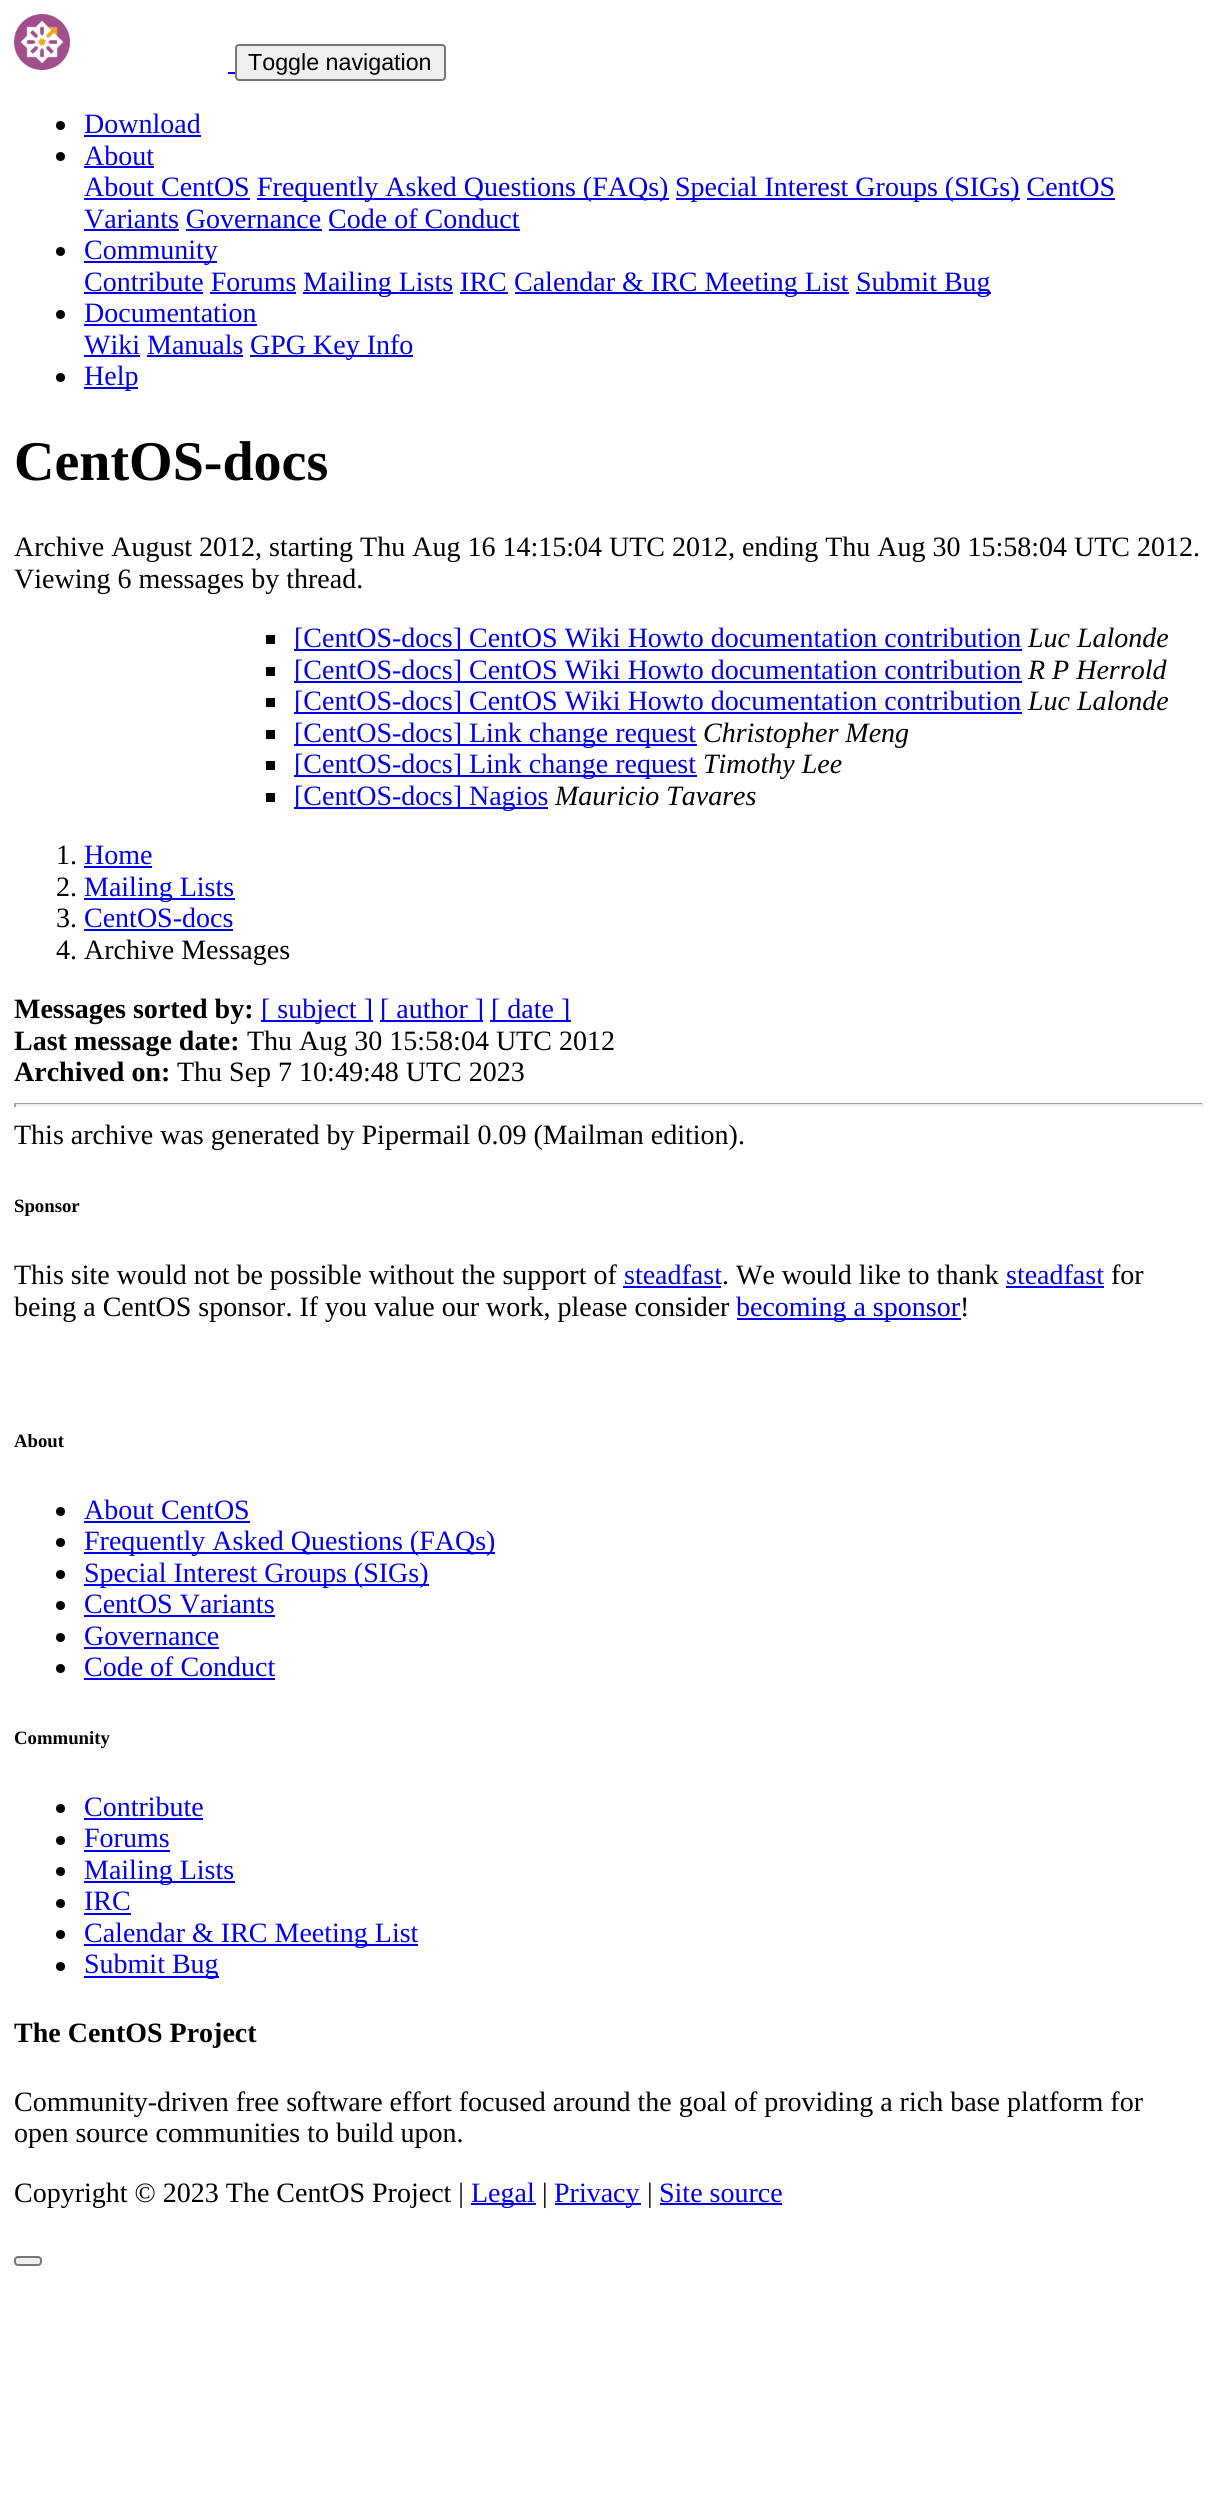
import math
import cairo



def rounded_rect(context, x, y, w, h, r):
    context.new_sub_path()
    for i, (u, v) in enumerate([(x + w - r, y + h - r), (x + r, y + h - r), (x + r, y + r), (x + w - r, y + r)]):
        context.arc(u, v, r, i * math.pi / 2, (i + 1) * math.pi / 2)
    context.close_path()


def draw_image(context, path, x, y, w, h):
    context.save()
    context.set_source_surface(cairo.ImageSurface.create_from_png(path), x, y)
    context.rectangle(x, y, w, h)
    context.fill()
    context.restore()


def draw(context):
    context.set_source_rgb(1, 1, 1)
    context.paint()
    draw_image(context, "images/1.png", 14, 14, 56, 56)
    context.set_source_rgb(0, 0, 238 / 255)
    context.rectangle(228, 72, 7, 2)
    context.fill()
    context.set_source_rgb(239 / 255, 239 / 255, 239 / 255)
    rounded_rect(context, 236, 45, 209, 35, 3)
    context.fill_preserve()
    context.set_source_rgb(118 / 255, 118 / 255, 118 / 255)
    context.stroke()
    context.set_source_rgb(0, 0, 0)
    context.arc(60.5, 125.5, 4.5, 0, 2 * math.pi)
    context.fill()
    context.set_source_rgb(0, 0, 238 / 255)
    context.rectangle(84, 135, 117, 2)
    context.fill()
    context.set_source_rgb(0, 0, 0)
    context.arc(60.5, 156.5, 4.5, 0, 2 * math.pi)
    context.fill()
    context.set_source_rgb(0, 0, 238 / 255)
    context.rectangle(84, 166, 70, 2)
    context.fill()
    context.rectangle(84, 198, 166, 2)
    context.fill()
    context.rectangle(257, 198, 412, 2)
    context.fill()
    context.rectangle(676, 198, 344, 2)
    context.fill()
    context.rectangle(1027, 198, 88, 2)
    context.fill()
    context.rectangle(84, 229, 95, 2)
    context.fill()
    context.rectangle(186, 229, 136, 2)
    context.fill()
    context.rectangle(329, 229, 191, 2)
    context.fill()
    context.set_source_rgb(0, 0, 0)
    context.arc(60.5, 251.5, 4.5, 0, 2 * math.pi)
    context.fill()
    context.set_source_rgb(0, 0, 238 / 255)
    context.rectangle(84, 261, 133, 2)
    context.fill()
    context.rectangle(84, 292, 119, 2)
    context.fill()
    context.rectangle(303, 292, 150, 2)
    context.fill()
    context.rectangle(515, 292, 334, 2)
    context.fill()
    context.rectangle(856, 292, 135, 2)
    context.fill()
    context.rectangle(210, 292, 86, 2)
    context.fill()
    context.rectangle(460, 292, 48, 2)
    context.fill()
    context.set_source_rgb(0, 0, 0)
    context.arc(60.5, 314.5, 4.5, 0, 2 * math.pi)
    context.fill()
    context.set_source_rgb(0, 0, 238 / 255)
    context.rectangle(84, 324, 173, 2)
    context.fill()
    context.rectangle(84, 355, 56, 2)
    context.fill()
    context.rectangle(250, 355, 163, 2)
    context.fill()
    context.rectangle(147, 355, 96, 2)
    context.fill()
    context.set_source_rgb(0, 0, 0)
    context.arc(60.5, 377.5, 4.5, 0, 2 * math.pi)
    context.fill()
    context.set_source_rgb(0, 0, 238 / 255)
    context.rectangle(84, 387, 54, 2)
    context.fill()
    context.set_source_rgb(0, 0, 0)
    context.rectangle(266, 635, 9, 9)
    context.fill()
    context.set_source_rgb(0, 0, 238 / 255)
    context.rectangle(294, 649, 728, 2)
    context.fill()
    context.set_source_rgb(0, 0, 0)
    context.rectangle(266, 667, 9, 9)
    context.fill()
    context.set_source_rgb(0, 0, 238 / 255)
    context.rectangle(294, 681, 728, 2)
    context.fill()
    context.set_source_rgb(0, 0, 0)
    context.rectangle(266, 698, 9, 9)
    context.fill()
    context.set_source_rgb(0, 0, 238 / 255)
    context.rectangle(294, 712, 728, 2)
    context.fill()
    context.set_source_rgb(0, 0, 0)
    context.rectangle(266, 730, 9, 9)
    context.fill()
    context.set_source_rgb(0, 0, 238 / 255)
    context.rectangle(294, 744, 403, 2)
    context.fill()
    context.set_source_rgb(0, 0, 0)
    context.rectangle(266, 761, 9, 9)
    context.fill()
    context.set_source_rgb(0, 0, 238 / 255)
    context.rectangle(294, 775, 403, 2)
    context.fill()
    context.set_source_rgb(0, 0, 0)
    context.rectangle(266, 793, 9, 9)
    context.fill()
    context.set_source_rgb(0, 0, 238 / 255)
    context.rectangle(294, 807, 254, 2)
    context.fill()
    context.rectangle(84, 866, 68, 2)
    context.fill()
    context.rectangle(84, 898, 151, 2)
    context.fill()
    context.rectangle(84, 929, 149, 2)
    context.fill()
    context.rectangle(261, 1020, 112, 2)
    context.fill()
    context.rectangle(380, 1020, 103, 2)
    context.fill()
    context.rectangle(490, 1020, 81, 2)
    context.fill()
    context.set_source_rgb(159 / 255, 159 / 255, 159 / 255)
    context.rectangle(14, 1103, 1190, 1)
    context.fill()
    context.set_source_rgb(238 / 255, 238 / 255, 238 / 255)
    context.rectangle(1202, 1103, 2, 4)
    context.fill()
    context.rectangle(14, 1104, 1190, 2)
    context.fill()
    context.set_source_rgb(159 / 255, 159 / 255, 159 / 255)
    context.rectangle(14, 1103, 2, 4)
    context.fill()
    context.set_source_rgb(0, 0, 238 / 255)
    context.rectangle(623, 1286, 98, 2)
    context.fill()
    context.rectangle(1006, 1286, 98, 2)
    context.fill()
    context.rectangle(737, 1318, 224, 2)
    context.fill()
    context.set_source_rgb(0, 0, 0)
    context.arc(60.5, 1511.5, 4.5, 0, 2 * math.pi)
    context.fill()
    context.set_source_rgb(0, 0, 238 / 255)
    context.rectangle(84, 1521, 166, 2)
    context.fill()
    context.set_source_rgb(0, 0, 0)
    context.arc(60.5, 1542.5, 4.5, 0, 2 * math.pi)
    context.fill()
    context.set_source_rgb(0, 0, 238 / 255)
    context.rectangle(84, 1552, 411, 2)
    context.fill()
    context.set_source_rgb(0, 0, 0)
    context.arc(60.5, 1574.5, 4.5, 0, 2 * math.pi)
    context.fill()
    context.set_source_rgb(0, 0, 238 / 255)
    context.rectangle(84, 1584, 345, 2)
    context.fill()
    context.set_source_rgb(0, 0, 0)
    context.arc(60.5, 1605.5, 4.5, 0, 2 * math.pi)
    context.fill()
    context.set_source_rgb(0, 0, 238 / 255)
    context.rectangle(84, 1615, 191, 2)
    context.fill()
    context.set_source_rgb(0, 0, 0)
    context.arc(60.5, 1637.5, 4.5, 0, 2 * math.pi)
    context.fill()
    context.set_source_rgb(0, 0, 238 / 255)
    context.rectangle(84, 1647, 135, 2)
    context.fill()
    context.set_source_rgb(0, 0, 0)
    context.arc(60.5, 1668.5, 4.5, 0, 2 * math.pi)
    context.fill()
    context.set_source_rgb(0, 0, 238 / 255)
    context.rectangle(84, 1678, 191, 2)
    context.fill()
    context.set_source_rgb(0, 0, 0)
    context.arc(60.5, 1808.5, 4.5, 0, 2 * math.pi)
    context.fill()
    context.set_source_rgb(0, 0, 238 / 255)
    context.rectangle(84, 1818, 119, 2)
    context.fill()
    context.set_source_rgb(0, 0, 0)
    context.arc(60.5, 1840.5, 4.5, 0, 2 * math.pi)
    context.fill()
    context.set_source_rgb(0, 0, 238 / 255)
    context.rectangle(84, 1850, 86, 2)
    context.fill()
    context.set_source_rgb(0, 0, 0)
    context.arc(60.5, 1871.5, 4.5, 0, 2 * math.pi)
    context.fill()
    context.set_source_rgb(0, 0, 238 / 255)
    context.rectangle(84, 1881, 151, 2)
    context.fill()
    context.set_source_rgb(0, 0, 0)
    context.arc(60.5, 1903.5, 4.5, 0, 2 * math.pi)
    context.fill()
    context.set_source_rgb(0, 0, 238 / 255)
    context.rectangle(84, 1913, 47, 2)
    context.fill()
    context.set_source_rgb(0, 0, 0)
    context.arc(60.5, 1934.5, 4.5, 0, 2 * math.pi)
    context.fill()
    context.set_source_rgb(0, 0, 238 / 255)
    context.rectangle(84, 1944, 334, 2)
    context.fill()
    context.set_source_rgb(0, 0, 0)
    context.arc(60.5, 1966.5, 4.5, 0, 2 * math.pi)
    context.fill()
    context.set_source_rgb(0, 0, 238 / 255)
    context.rectangle(84, 1976, 135, 2)
    context.fill()
    context.rectangle(471, 2203, 65, 2)
    context.fill()
    context.rectangle(555, 2203, 86, 2)
    context.fill()
    context.rectangle(660, 2203, 122, 2)
    context.fill()
    context.set_source_rgb(239 / 255, 239 / 255, 239 / 255)
    rounded_rect(context, 15, 2257, 26, 8, 3)
    context.fill_preserve()
    context.set_source_rgb(118 / 255, 118 / 255, 118 / 255)
    context.stroke()
    context.select_font_face("Liberation Sans")
    context.set_font_size(23.25)
    context.set_source_rgb(0, 0, 0)
    context.move_to(248, 70)
    context.show_text("Toggle navigation")
    context.select_font_face("Liberation Serif")
    context.set_font_size(28)
    context.set_source_rgb(0, 0, 238 / 255)
    context.move_to(84, 133)
    context.show_text("Download")
    context.move_to(84, 165)
    context.show_text("About")
    context.move_to(84, 196)
    context.show_text("About CentOS")
    context.move_to(257, 196)
    context.show_text("Frequently Asked Questions (FAQs)")
    context.move_to(675, 196)
    context.show_text("Special Interest Groups (SIGs) CentOS")
    context.move_to(84, 228)
    context.show_text("Variants Governance Code of Conduct")
    context.move_to(84, 259)
    context.show_text("Community")
    context.move_to(84, 291)
    context.show_text("Contribute Forums")
    context.move_to(303, 291)
    context.show_text("Mailing Lists IRC")
    context.move_to(514, 291)
    context.show_text("Calendar & IRC Meeting List")
    context.move_to(856, 291)
    context.show_text("Submit Bug")
    context.move_to(84, 322)
    context.show_text("Documentation")
    context.move_to(84, 354)
    context.show_text("Wiki Manuals")
    context.move_to(250, 354)
    context.show_text("GPG Key Info")
    context.move_to(84, 385)
    context.show_text("Help")
    context.select_font_face("Liberation Serif", cairo.FontSlant.NORMAL, cairo.FontWeight.BOLD)
    context.set_font_size(56)
    context.set_source_rgb(0, 0, 0)
    context.move_to(14, 480)
    context.show_text("CentOS-docs")
    context.select_font_face("Liberation Serif")
    context.set_font_size(28)
    context.move_to(14, 556)
    context.show_text("Archive August 2012, starting Thu Aug 16 14:15:04 UTC 2012, ending Thu Aug 30 15:58:04 UTC 2012.")
    context.move_to(14, 588)
    context.show_text("Viewing 6 messages by thread.")
    context.set_source_rgb(0, 0, 238 / 255)
    context.move_to(294, 647)
    context.show_text("[CentOS-docs] CentOS Wiki Howto documentation contribution")
    context.select_font_face("Liberation Serif", cairo.FontSlant.ITALIC)
    context.set_source_rgb(0, 0, 0)
    context.move_to(1028, 647)
    context.show_text("Luc Lalonde")
    context.select_font_face("Liberation Serif")
    context.set_source_rgb(0, 0, 238 / 255)
    context.move_to(294, 679)
    context.show_text("[CentOS-docs] CentOS Wiki Howto documentation contribution")
    context.select_font_face("Liberation Serif", cairo.FontSlant.ITALIC)
    context.set_source_rgb(0, 0, 0)
    context.move_to(1028, 679)
    context.show_text("R P Herrold")
    context.select_font_face("Liberation Serif")
    context.set_source_rgb(0, 0, 238 / 255)
    context.move_to(294, 710)
    context.show_text("[CentOS-docs] CentOS Wiki Howto documentation contribution")
    context.select_font_face("Liberation Serif", cairo.FontSlant.ITALIC)
    context.set_source_rgb(0, 0, 0)
    context.move_to(1028, 710)
    context.show_text("Luc Lalonde")
    context.select_font_face("Liberation Serif")
    context.set_source_rgb(0, 0, 238 / 255)
    context.move_to(294, 742)
    context.show_text("[CentOS-docs] Link change request")
    context.select_font_face("Liberation Serif", cairo.FontSlant.ITALIC)
    context.set_source_rgb(0, 0, 0)
    context.move_to(703, 742)
    context.show_text("Christopher Meng")
    context.select_font_face("Liberation Serif")
    context.set_source_rgb(0, 0, 238 / 255)
    context.move_to(294, 773)
    context.show_text("[CentOS-docs] Link change request")
    context.select_font_face("Liberation Serif", cairo.FontSlant.ITALIC)
    context.set_source_rgb(0, 0, 0)
    context.move_to(703, 773)
    context.show_text("Timothy Lee")
    context.select_font_face("Liberation Serif")
    context.set_source_rgb(0, 0, 238 / 255)
    context.move_to(294, 805)
    context.show_text("[CentOS-docs] Nagios")
    context.select_font_face("Liberation Serif", cairo.FontSlant.ITALIC)
    context.set_source_rgb(0, 0, 0)
    context.move_to(555, 805)
    context.show_text("Mauricio Tavares")
    context.select_font_face("Liberation Serif")
    context.move_to(56, 864)
    context.show_text("1.")
    context.set_source_rgb(0, 0, 238 / 255)
    context.move_to(84, 864)
    context.show_text("Home")
    context.set_source_rgb(0, 0, 0)
    context.move_to(56, 896)
    context.show_text("2.")
    context.set_source_rgb(0, 0, 238 / 255)
    context.move_to(84, 896)
    context.show_text("Mailing Lists")
    context.set_source_rgb(0, 0, 0)
    context.move_to(56, 927)
    context.show_text("3.")
    context.set_source_rgb(0, 0, 238 / 255)
    context.move_to(84, 927)
    context.show_text("CentOS-docs")
    context.set_source_rgb(0, 0, 0)
    context.move_to(56, 959)
    context.show_text("4. Archive Messages")
    context.select_font_face("Liberation Serif", cairo.FontSlant.NORMAL, cairo.FontWeight.BOLD)
    context.move_to(14, 1018)
    context.show_text("Messages sorted by:")
    context.select_font_face("Liberation Serif")
    context.set_source_rgb(0, 0, 238 / 255)
    context.move_to(261, 1018)
    context.show_text("[ subject ]")
    context.move_to(380, 1018)
    context.show_text("[ author ]")
    context.move_to(491, 1018)
    context.show_text("[ date ]")
    context.select_font_face("Liberation Serif", cairo.FontSlant.NORMAL, cairo.FontWeight.BOLD)
    context.set_source_rgb(0, 0, 0)
    context.move_to(14, 1050)
    context.show_text("Last message date:")
    context.select_font_face("Liberation Serif")
    context.move_to(247, 1050)
    context.show_text("Thu Aug 30 15:58:04 UTC 2012")
    context.select_font_face("Liberation Serif", cairo.FontSlant.NORMAL, cairo.FontWeight.BOLD)
    context.move_to(14, 1081)
    context.show_text("Archived on:")
    context.select_font_face("Liberation Serif")
    context.move_to(177, 1081)
    context.show_text("Thu Sep 7 10:49:48 UTC 2023")
    context.move_to(14, 1144)
    context.show_text("This archive was generated by Pipermail 0.09 (Mailman edition).")
    context.select_font_face("Liberation Serif", cairo.FontSlant.NORMAL, cairo.FontWeight.BOLD)
    context.set_font_size(18.75)
    context.move_to(14, 1212)
    context.show_text("Sponsor")
    context.select_font_face("Liberation Serif")
    context.set_font_size(28)
    context.move_to(14, 1284)
    context.show_text("This site would not be possible without the support of")
    context.set_source_rgb(0, 0, 238 / 255)
    context.move_to(624, 1284)
    context.show_text("steadfast")
    context.set_source_rgb(0, 0, 0)
    context.move_to(722, 1284)
    context.show_text(". We would like to thank")
    context.set_source_rgb(0, 0, 238 / 255)
    context.move_to(1006, 1284)
    context.show_text("steadfast")
    context.set_source_rgb(0, 0, 0)
    context.move_to(1111, 1284)
    context.show_text("for")
    context.move_to(14, 1316)
    context.show_text("being a CentOS sponsor. If you value our work, please consider")
    context.set_source_rgb(0, 0, 238 / 255)
    context.move_to(736, 1316)
    context.show_text("becoming a sponsor")
    context.set_source_rgb(0, 0, 0)
    context.move_to(960, 1316)
    context.show_text("!")
    context.select_font_face("Liberation Serif", cairo.FontSlant.NORMAL, cairo.FontWeight.BOLD)
    context.set_font_size(18.75)
    context.move_to(14, 1447)
    context.show_text("About")
    context.select_font_face("Liberation Serif")
    context.set_font_size(28)
    context.set_source_rgb(0, 0, 238 / 255)
    context.move_to(84, 1519)
    context.show_text("About CentOS")
    context.move_to(84, 1550)
    context.show_text("Frequently Asked Questions (FAQs)")
    context.move_to(84, 1582)
    context.show_text("Special Interest Groups (SIGs)")
    context.move_to(84, 1613)
    context.show_text("CentOS Variants")
    context.move_to(84, 1645)
    context.show_text("Governance")
    context.move_to(84, 1676)
    context.show_text("Code of Conduct")
    context.select_font_face("Liberation Serif", cairo.FontSlant.NORMAL, cairo.FontWeight.BOLD)
    context.set_font_size(18.75)
    context.set_source_rgb(0, 0, 0)
    context.move_to(14, 1744)
    context.show_text("Community")
    context.select_font_face("Liberation Serif")
    context.set_font_size(28)
    context.set_source_rgb(0, 0, 238 / 255)
    context.move_to(84, 1816)
    context.show_text("Contribute")
    context.move_to(84, 1847)
    context.show_text("Forums")
    context.move_to(84, 1879)
    context.show_text("Mailing Lists")
    context.move_to(84, 1910)
    context.show_text("IRC")
    context.move_to(84, 1942)
    context.show_text("Calendar & IRC Meeting List")
    context.move_to(84, 1973)
    context.show_text("Submit Bug")
    context.select_font_face("Liberation Serif", cairo.FontSlant.NORMAL, cairo.FontWeight.BOLD)
    context.set_source_rgb(0, 0, 0)
    context.move_to(14, 2042)
    context.show_text("The CentOS Project")
    context.select_font_face("Liberation Serif")
    context.move_to(14, 2111)
    context.show_text("Community-driven free software effort focused around the goal of providing a rich base platform for")
    context.move_to(14, 2142)
    context.show_text("open source communities to build upon.")
    context.move_to(14, 2202)
    context.show_text("Copyright © 2023 The CentOS Project |")
    context.set_source_rgb(0, 0, 238 / 255)
    context.move_to(471, 2202)
    context.show_text("Legal")
    context.set_source_rgb(0, 0, 0)
    context.move_to(542, 2202)
    context.show_text("|")
    context.set_source_rgb(0, 0, 238 / 255)
    context.move_to(554, 2202)
    context.show_text("Privacy")
    context.set_source_rgb(0, 0, 0)
    context.move_to(647, 2202)
    context.show_text("|")
    context.set_source_rgb(0, 0, 238 / 255)
    context.move_to(659, 2202)
    context.show_text("Site source")


surface = cairo.ImageSurface(cairo.Format.RGB24, 1218, 2508)
context = cairo.Context(surface)
options = cairo.FontOptions()
options.set_hint_metrics(cairo.HintMetrics.OFF)
options.set_hint_style(cairo.HintStyle.NONE)
context.set_font_options(options)
context.set_miter_limit(4)
draw(context)
surface.write_to_png("out.png")
